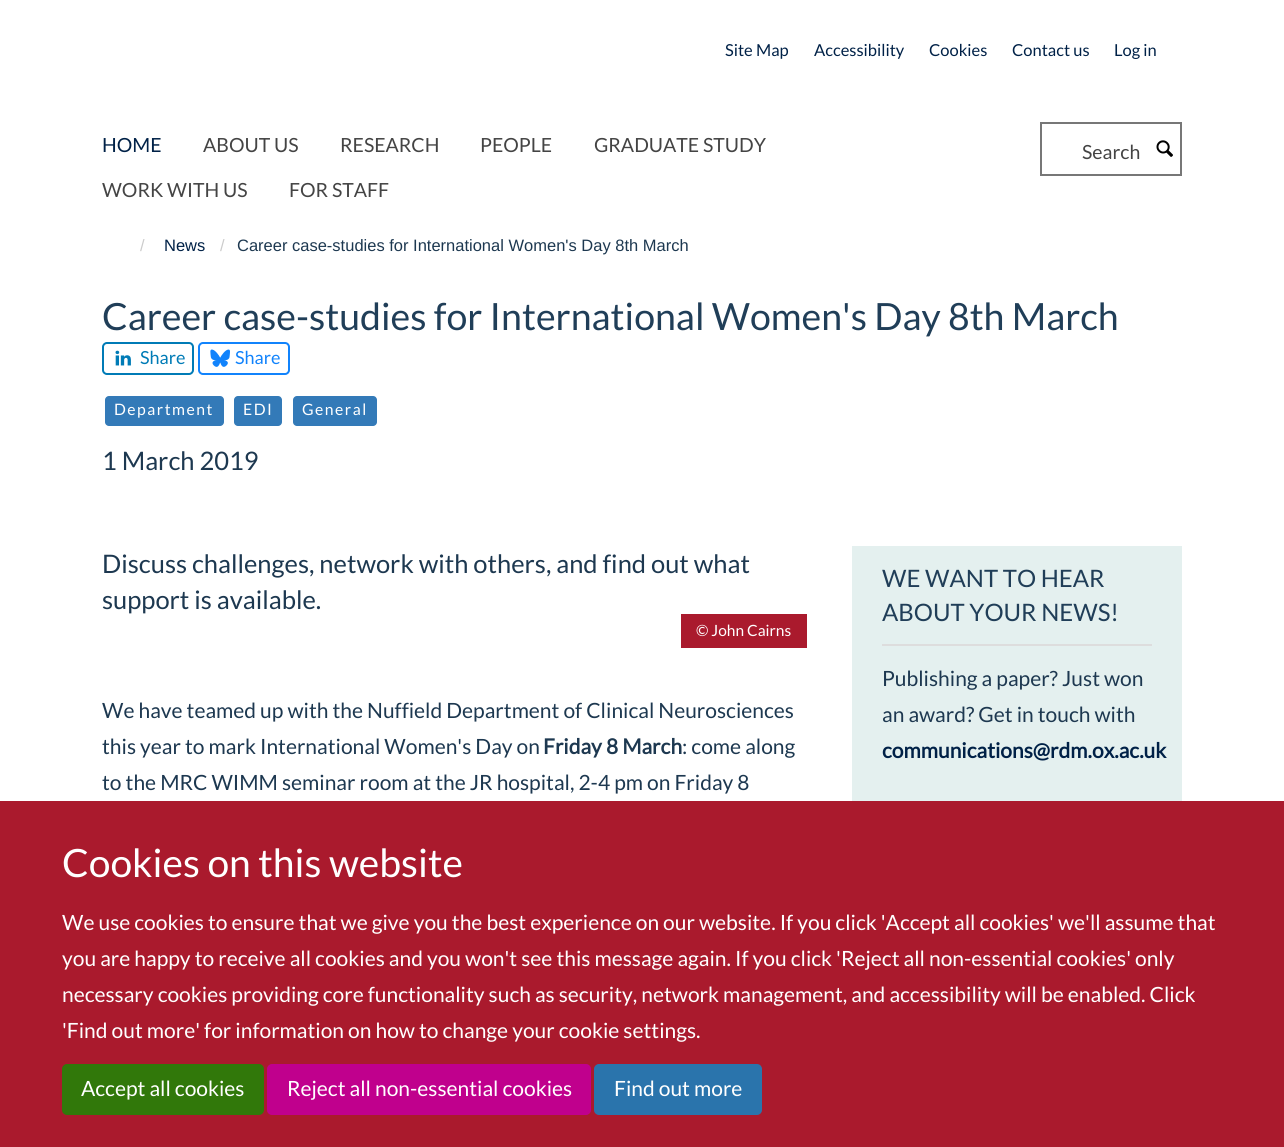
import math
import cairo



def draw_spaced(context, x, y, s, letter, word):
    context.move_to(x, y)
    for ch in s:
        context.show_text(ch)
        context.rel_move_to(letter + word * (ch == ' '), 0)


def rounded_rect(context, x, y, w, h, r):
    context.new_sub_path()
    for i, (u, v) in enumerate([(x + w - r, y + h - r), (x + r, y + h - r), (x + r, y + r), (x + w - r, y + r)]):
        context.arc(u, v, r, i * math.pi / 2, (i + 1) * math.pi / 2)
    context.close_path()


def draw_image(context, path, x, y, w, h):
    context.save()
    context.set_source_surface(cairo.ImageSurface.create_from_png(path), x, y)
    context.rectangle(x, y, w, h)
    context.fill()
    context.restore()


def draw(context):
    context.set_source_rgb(1, 1, 1)
    context.paint()
    context.rectangle(1041, 123, 140, 52)
    context.set_source_rgb(119 / 255, 119 / 255, 119 / 255)
    context.stroke()
    draw_image(context, "images/1.png", 1156, 140, 17, 17)
    rounded_rect(context, 103, 343, 90, 31, 4)
    context.set_source_rgb(0, 123 / 255, 182 / 255)
    context.stroke()
    draw_image(context, "images/2.png", 115, 350, 16, 16)
    rounded_rect(context, 199, 343, 90, 31, 4)
    context.set_source_rgb(17 / 255, 131 / 255, 252 / 255)
    context.stroke()
    draw_image(context, "images/3.png", 210, 349, 20, 18)
    context.set_source_rgb(51 / 255, 122 / 255, 184 / 255)
    rounded_rect(context, 105, 396, 119, 30, 4)
    context.fill()
    rounded_rect(context, 234, 396, 48, 30, 4)
    context.fill()
    rounded_rect(context, 293, 396, 84, 30, 4)
    context.fill()
    context.set_source_rgb(170 / 255, 26 / 255, 45 / 255)
    context.rectangle(681, 614, 126, 34)
    context.fill()
    context.set_source_rgb(228 / 255, 240 / 255, 239 / 255)
    context.rectangle(852, 546, 330, 255)
    context.fill()
    context.set_source_rgb(221 / 255, 221 / 255, 221 / 255)
    context.rectangle(882, 644, 270, 2)
    context.fill()
    context.set_source_rgb(170 / 255, 26 / 255, 45 / 255)
    context.rectangle(0, 801, 1284, 346)
    context.fill()
    context.set_source_rgb(49 / 255, 120 / 255, 10 / 255)
    rounded_rect(context, 63, 1065, 200, 49, 4)
    context.fill_preserve()
    context.stroke()
    context.set_source_rgb(192 / 255, 0, 141 / 255)
    rounded_rect(context, 268, 1065, 322, 49, 4)
    context.fill_preserve()
    context.stroke()
    context.set_source_rgb(42 / 255, 116 / 255, 172 / 255)
    rounded_rect(context, 595, 1065, 166, 49, 4)
    context.fill_preserve()
    context.stroke()
    context.select_font_face("Lato")
    context.set_font_size(16.5)
    context.set_source_rgb(0, 33 / 255, 71 / 255)
    context.move_to(725, 56)
    context.show_text("Site Map")
    context.move_to(814, 56)
    context.show_text("Accessibility")
    context.move_to(929, 56)
    context.show_text("Cookies")
    context.move_to(1012, 56)
    context.show_text("Contact us")
    context.move_to(1114, 56)
    context.show_text("Log in")
    context.set_font_size(19.5)
    context.move_to(102, 152)
    context.show_text("HOME")
    context.set_source_rgb(68 / 255, 68 / 255, 68 / 255)
    context.move_to(203, 152)
    context.show_text("ABOUT US")
    context.move_to(340, 152)
    context.show_text("RESEARCH")
    context.move_to(480, 152)
    context.show_text("PEOPLE")
    context.move_to(594, 152)
    context.show_text("GRADUATE STUDY")
    context.move_to(102, 197)
    context.show_text("WORK WITH US")
    context.move_to(289, 197)
    context.show_text("FOR STAFF")
    context.move_to(1082, 159)
    context.show_text("Search")
    context.select_font_face("Liberation Sans")
    context.set_font_size(16.5)
    context.set_source_rgb(204 / 255, 204 / 255, 204 / 255)
    context.move_to(140, 251)
    context.show_text("/")
    context.set_source_rgb(0, 33 / 255, 71 / 255)
    context.move_to(164, 251)
    context.show_text("News")
    context.set_source_rgb(204 / 255, 204 / 255, 204 / 255)
    context.move_to(220, 251)
    context.show_text("/")
    context.set_source_rgb(29 / 255, 56 / 255, 80 / 255)
    context.move_to(237, 251)
    context.show_text("Career case-studies for International Women's Day 8th March")
    context.select_font_face("Lato")
    context.set_font_size(37.5)
    context.set_source_rgb(32 / 255, 62 / 255, 88 / 255)
    context.move_to(102, 330)
    context.show_text("Career case-studies for International Women's Day 8th March")
    context.set_font_size(18)
    context.set_source_rgb(0, 123 / 255, 182 / 255)
    context.move_to(140, 364)
    context.show_text("Share")
    context.set_source_rgb(17 / 255, 131 / 255, 252 / 255)
    context.move_to(235, 364)
    context.show_text("Share")
    context.set_font_size(15.75)
    context.set_source_rgb(1, 1, 1)
    draw_spaced(context, 114, 415, "Department", 1.5, 0)
    draw_spaced(context, 243, 415, "EDI", 1.5, 0)
    draw_spaced(context, 302, 415, "General", 1.5, 0)
    context.set_font_size(25.5)
    context.set_source_rgb(29 / 255, 56 / 255, 80 / 255)
    context.move_to(102, 470)
    context.show_text("1 March 2019")
    context.move_to(102, 573)
    context.show_text("Discuss challenges, network with others, and find out what")
    context.move_to(102, 609)
    context.show_text("support is available.")
    context.set_font_size(15.5)
    context.set_source_rgb(1, 1, 1)
    context.move_to(696, 636)
    context.show_text("© John Cairns")
    context.set_font_size(21)
    context.set_source_rgb(29 / 255, 56 / 255, 80 / 255)
    context.move_to(102, 718)
    context.show_text("We have teamed up with the Nuffield Department of Clinical Neurosciences")
    context.move_to(102, 754)
    context.show_text("this year to mark International Women's Day on")
    context.select_font_face("Lato", cairo.FontSlant.NORMAL, cairo.FontWeight.BOLD)
    context.move_to(543, 754)
    context.show_text("Friday 8 March")
    context.select_font_face("Lato")
    context.move_to(682, 754)
    context.show_text(": come along")
    context.move_to(102, 790)
    context.show_text("to the MRC WIMM seminar room at the JR hospital, 2-4 pm on Friday 8")
    context.set_font_size(24)
    context.set_source_rgb(32 / 255, 62 / 255, 88 / 255)
    context.move_to(882, 587)
    context.show_text("WE WANT TO HEAR")
    context.move_to(882, 621)
    context.show_text("ABOUT YOUR NEWS!")
    context.set_font_size(21)
    context.set_source_rgb(29 / 255, 56 / 255, 80 / 255)
    context.move_to(882, 686)
    context.show_text("Publishing a paper? Just won")
    context.move_to(882, 722)
    context.show_text("an award? Get in touch with")
    context.select_font_face("Lato", cairo.FontSlant.NORMAL, cairo.FontWeight.BOLD)
    context.set_source_rgb(0, 33 / 255, 71 / 255)
    context.move_to(882, 758)
    context.show_text("communications@rdm.ox.ac.uk")
    context.select_font_face("Lato")
    context.set_font_size(39)
    context.set_source_rgb(1, 1, 1)
    context.move_to(62, 877)
    context.show_text("Cookies on this website")
    context.set_font_size(21)
    context.move_to(62, 930)
    context.show_text("We use cookies to ensure that we give you the best experience on our website. If you click 'Accept all cookies' we'll assume that")
    context.move_to(62, 966)
    context.show_text("you are happy to receive all cookies and you won't see this message again. If you click 'Reject all non-essential cookies' only")
    context.move_to(62, 1002)
    context.show_text("necessary cookies providing core functionality such as security, network management, and accessibility will be enabled. Click")
    context.move_to(62, 1038)
    context.show_text("'Find out more' for information on how to change your cookie settings.")
    context.move_to(81, 1096)
    context.show_text("Accept all cookies")
    context.move_to(287, 1096)
    context.show_text("Reject all non-essential cookies")
    context.move_to(614, 1096)
    context.show_text("Find out more")


surface = cairo.ImageSurface(cairo.Format.RGB24, 1284, 1147)
context = cairo.Context(surface)
options = cairo.FontOptions()
options.set_hint_metrics(cairo.HintMetrics.OFF)
options.set_hint_style(cairo.HintStyle.NONE)
context.set_font_options(options)
context.set_miter_limit(4)
draw(context)
surface.write_to_png("out.png")
